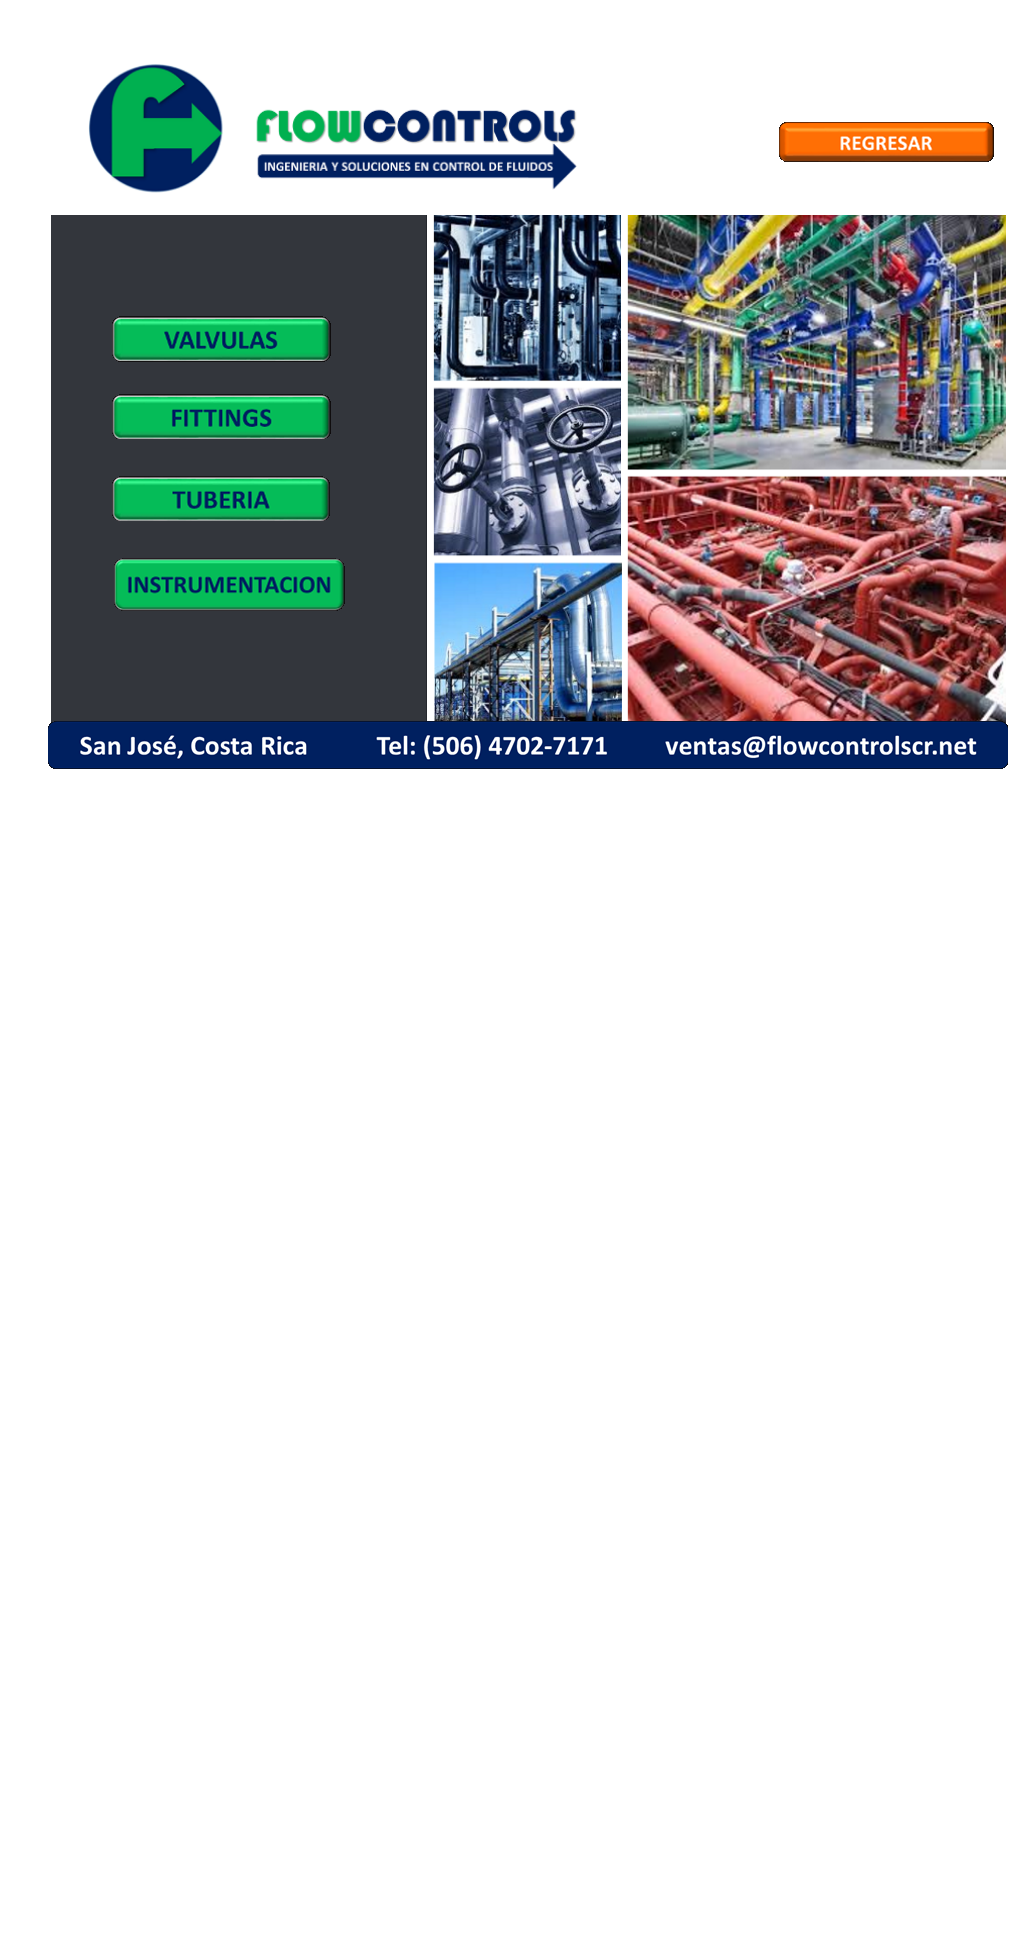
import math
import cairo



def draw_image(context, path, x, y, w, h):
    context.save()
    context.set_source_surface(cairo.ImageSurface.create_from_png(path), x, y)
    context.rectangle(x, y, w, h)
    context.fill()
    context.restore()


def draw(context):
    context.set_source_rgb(1, 1, 1)
    context.paint()
    draw_image(context, "images/1.png", 88, 64, 489, 129)
    draw_image(context, "images/2.png", 779, 122, 215, 40)
    draw_image(context, "images/3.png", 51, 215, 955, 508)
    draw_image(context, "images/4.png", 112, 316, 219, 46)
    draw_image(context, "images/5.png", 112, 394, 219, 45)
    draw_image(context, "images/6.png", 112, 476, 218, 45)
    draw_image(context, "images/7.png", 114, 558, 231, 53)
    draw_image(context, "images/8.png", 48, 721, 960, 48)


surface = cairo.ImageSurface(cairo.Format.RGB24, 1035, 1936)
context = cairo.Context(surface)
options = cairo.FontOptions()
options.set_hint_metrics(cairo.HintMetrics.OFF)
options.set_hint_style(cairo.HintStyle.NONE)
context.set_font_options(options)
context.set_miter_limit(4)
draw(context)
surface.write_to_png("out.png")
